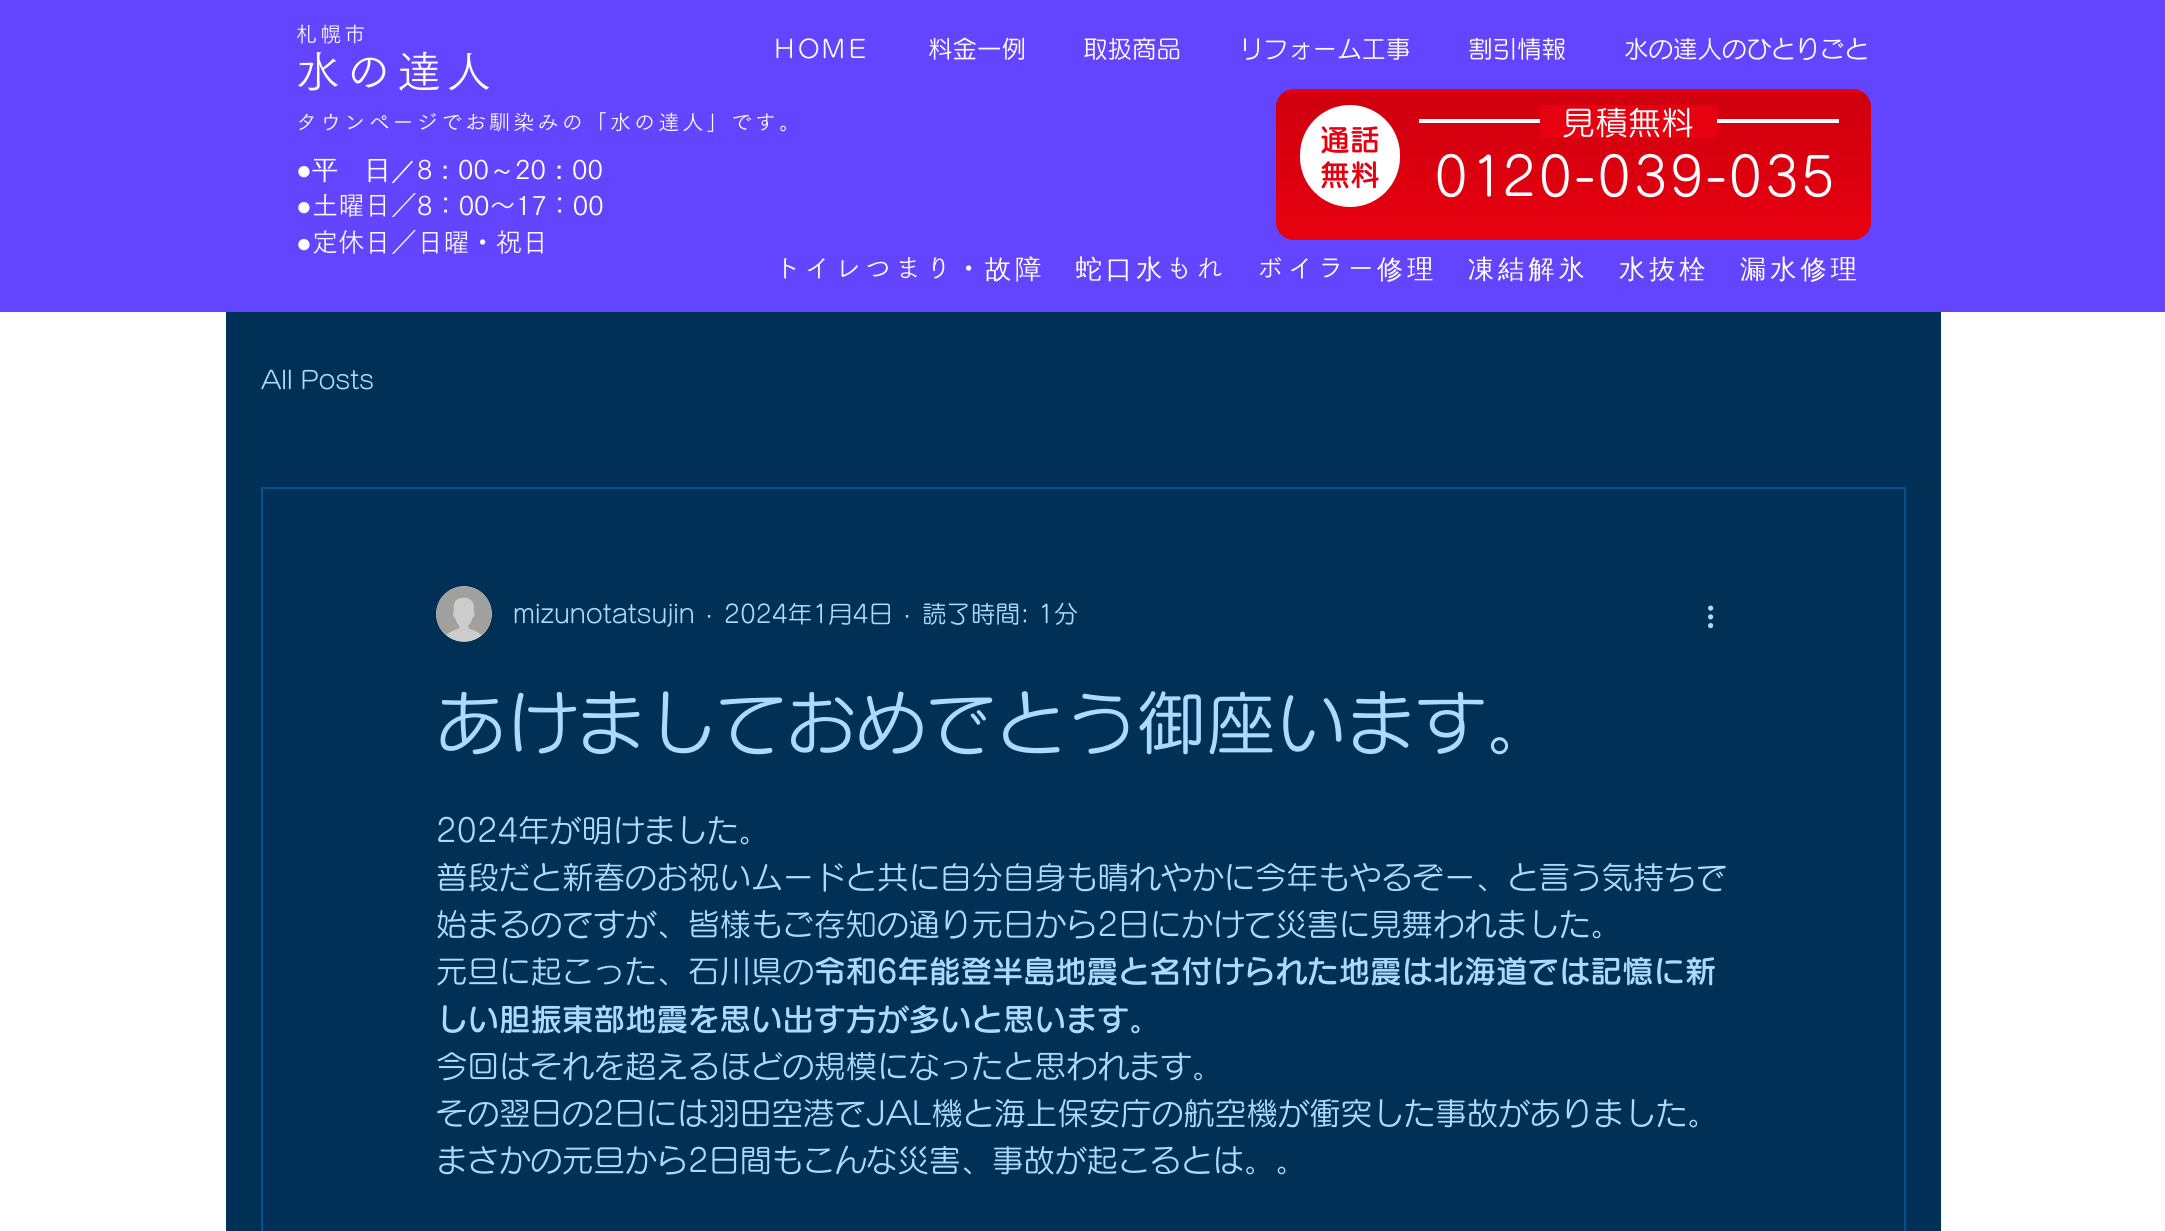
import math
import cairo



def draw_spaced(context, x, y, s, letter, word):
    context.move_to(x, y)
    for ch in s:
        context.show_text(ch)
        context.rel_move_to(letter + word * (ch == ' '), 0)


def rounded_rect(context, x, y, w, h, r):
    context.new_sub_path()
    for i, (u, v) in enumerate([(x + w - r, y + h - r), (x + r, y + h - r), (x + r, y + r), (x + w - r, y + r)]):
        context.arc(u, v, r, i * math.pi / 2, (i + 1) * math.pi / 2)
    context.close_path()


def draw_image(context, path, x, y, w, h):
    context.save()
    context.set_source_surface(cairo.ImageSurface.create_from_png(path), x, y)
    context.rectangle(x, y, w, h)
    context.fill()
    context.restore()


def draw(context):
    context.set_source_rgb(1, 1, 1)
    context.paint()
    context.set_source_rgb(99 / 255, 68 / 255, 1)
    context.rectangle(0, 0, 2165, 312)
    context.fill()
    context.set_source_rgb(230 / 255, 0, 16 / 255)
    rounded_rect(context, 1276, 89, 595, 151, 18)
    context.fill()
    draw_image(context, "images/1.png", 1276, 92, 595, 121)
    context.set_source_rgb(1, 1, 1)
    context.rectangle(1419, 119, 420, 4)
    context.fill()
    context.set_source_rgb(230 / 255, 0, 16 / 255)
    context.rectangle(1540, 105, 177, 33)
    context.fill()
    context.set_source_rgb(1, 1, 1)
    rounded_rect(context, 1300, 105, 100, 102, 50)
    context.fill()
    context.set_source_rgb(0, 48 / 255, 85 / 255)
    context.rectangle(226, 312, 1715, 919)
    context.fill()
    context.rectangle(262, 488, 1643, 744)
    context.set_source_rgb(0, 84 / 255, 149 / 255)
    context.stroke()
    draw_image(context, "images/2.png", 436, 586, 56, 56)
    draw_image(context, "images/3.png", 1708, 605, 6, 24)
    context.select_font_face("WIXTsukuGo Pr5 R")
    context.set_font_size(21)
    context.set_source_rgb(1, 1, 1)
    draw_spaced(context, 296, 42, "札幌市", 3.15, 0)
    context.select_font_face("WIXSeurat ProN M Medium")
    context.set_font_size(24.5)
    context.move_to(772, 58)
    context.show_text("ＨＯＭＥ")
    context.move_to(928, 58)
    context.show_text("料金一例")
    context.move_to(1083, 58)
    context.show_text("取扱商品")
    context.move_to(1239, 58)
    context.show_text("リフォーム工事")
    context.move_to(1468, 58)
    context.show_text("割引情報")
    context.move_to(1624, 58)
    context.show_text("水の達人のひとりごと")
    context.select_font_face("WIXTsukuGo Pr5 R")
    context.set_font_size(44)
    draw_spaced(context, 296, 88, "水の達", 6.5, 0)
    context.move_to(447, 88)
    context.show_text("人")
    context.set_font_size(21)
    draw_spaced(context, 296, 130, "タウンページでお馴染みの「水の達人」です。", 3.15, 0)
    context.select_font_face("WIXSeurat ProN M Medium")
    context.set_font_size(33)
    context.move_to(1562, 135)
    context.show_text("見積無料")
    context.select_font_face("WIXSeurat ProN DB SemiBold")
    context.set_font_size(30)
    context.set_source_rgb(230 / 255, 0, 16 / 255)
    context.move_to(1320, 151)
    context.show_text("通話")
    context.move_to(1320, 186)
    context.show_text("無料")
    context.select_font_face("WIXSeurat ProN M Medium")
    context.set_font_size(52.5)
    context.set_source_rgb(1, 1, 1)
    draw_spaced(context, 1434, 196, "0", 2.1, 0)
    draw_spaced(context, 1470, 196, "1", -3, 0)
    draw_spaced(context, 1502, 196, "20-039-035", 2.1, 0)
    context.select_font_face("Liberation Sans")
    context.set_font_size(26.25)
    context.move_to(296, 179)
    context.show_text("●")
    context.select_font_face("WenQuanYi Zen Hei Medium")
    context.move_to(312, 179)
    context.show_text("平　日／")
    context.select_font_face("WIXTsukuGo Pr5 R")
    context.move_to(417, 179)
    context.show_text("8")
    context.select_font_face("WenQuanYi Zen Hei Medium")
    context.move_to(432, 179)
    context.show_text("：")
    context.select_font_face("WIXTsukuGo Pr5 R")
    context.move_to(458, 179)
    context.show_text("00")
    context.select_font_face("WenQuanYi Zen Hei Medium")
    context.move_to(489, 179)
    context.show_text("～")
    context.select_font_face("WIXTsukuGo Pr5 R")
    context.move_to(515, 179)
    context.show_text("20")
    context.select_font_face("WenQuanYi Zen Hei Medium")
    context.move_to(546, 179)
    context.show_text("：")
    context.select_font_face("WIXTsukuGo Pr5 R")
    context.move_to(572, 179)
    context.show_text("00")
    context.select_font_face("Liberation Sans")
    context.move_to(296, 215)
    context.show_text("●")
    context.select_font_face("WIXTsukuGo Pr5 R")
    context.move_to(312, 215)
    context.show_text("土曜日／8：00～17：00")
    context.select_font_face("Liberation Sans")
    context.move_to(296, 252)
    context.show_text("●")
    context.select_font_face("WIXTsukuGo Pr5 R")
    context.move_to(312, 252)
    context.show_text("定休日／日曜・祝日")
    draw_spaced(context, 774, 278, "トイレつまり・", 4, 0)
    context.select_font_face("WenQuanYi Zen Hei Medium")
    draw_spaced(context, 985, 278, "故障　蛇口水", 4, 0)
    context.select_font_face("WIXTsukuGo Pr5 R")
    draw_spaced(context, 1166, 278, "もれ", 4, 0)
    draw_spaced(context, 1257, 278, "ボイラー", 4, 0)
    context.select_font_face("WenQuanYi Zen Hei Medium")
    draw_spaced(context, 1377, 278, "修理　凍結解氷　水抜栓　漏水修理", 4, 0)
    context.select_font_face("WIXSeurat ProN M Medium")
    context.set_font_size(24.5)
    context.set_source_rgb(170 / 255, 218 / 255, 1)
    context.move_to(261, 389)
    context.show_text("All Posts")
    context.move_to(513, 623)
    context.show_text("mizunotatsujin")
    context.select_font_face("Liberation Sans")
    context.move_to(705, 623)
    context.show_text("·")
    context.select_font_face("WIXSeurat ProN M Medium")
    context.move_to(724, 623)
    context.show_text("2024年1月4日")
    context.select_font_face("Liberation Sans")
    context.move_to(903, 623)
    context.show_text("·")
    context.select_font_face("WIXSeurat ProN M Medium")
    context.move_to(922, 623)
    context.show_text("読了時間: 1分")
    context.set_font_size(70)
    context.move_to(436, 749)
    context.show_text("あけましておめでとう御座います。")
    context.set_font_size(31.5)
    context.move_to(436, 842)
    context.show_text("2024年が明けました。")
    context.move_to(436, 889)
    context.show_text("普段だと新春のお祝いムードと共に自分自身も晴れやかに今年もやるぞー、と言う気持ちで")
    context.move_to(436, 936)
    context.show_text("始まるのですが、皆様もご存知の通り元日から2日にかけて災害に見舞われました。")
    context.move_to(436, 983)
    context.show_text("元旦に起こった、石川県の")
    context.select_font_face("WIXSeurat ProN DB SemiBold")
    context.move_to(814, 983)
    context.show_text("令和6年能登半島地震と名付けられた地震は北海道では記憶に新")
    context.move_to(436, 1031)
    context.show_text("しい胆振東部地震を思い出す方が多いと思います。")
    context.select_font_face("WIXSeurat ProN M Medium")
    context.move_to(436, 1078)
    context.show_text("今回はそれを超えるほどの規模になったと思われます。")
    context.move_to(436, 1125)
    context.show_text("その翌日の2日には羽田空港でJAL機と海上保安庁の航空機が衝突した事故がありました。")
    context.move_to(436, 1172)
    context.show_text("まさかの元旦から2日間もこんな災害、事故が起こるとは。。")


surface = cairo.ImageSurface(cairo.Format.RGB24, 2165, 1231)
context = cairo.Context(surface)
options = cairo.FontOptions()
options.set_hint_metrics(cairo.HintMetrics.OFF)
options.set_hint_style(cairo.HintStyle.NONE)
context.set_font_options(options)
context.set_miter_limit(4)
draw(context)
surface.write_to_png("out.png")
